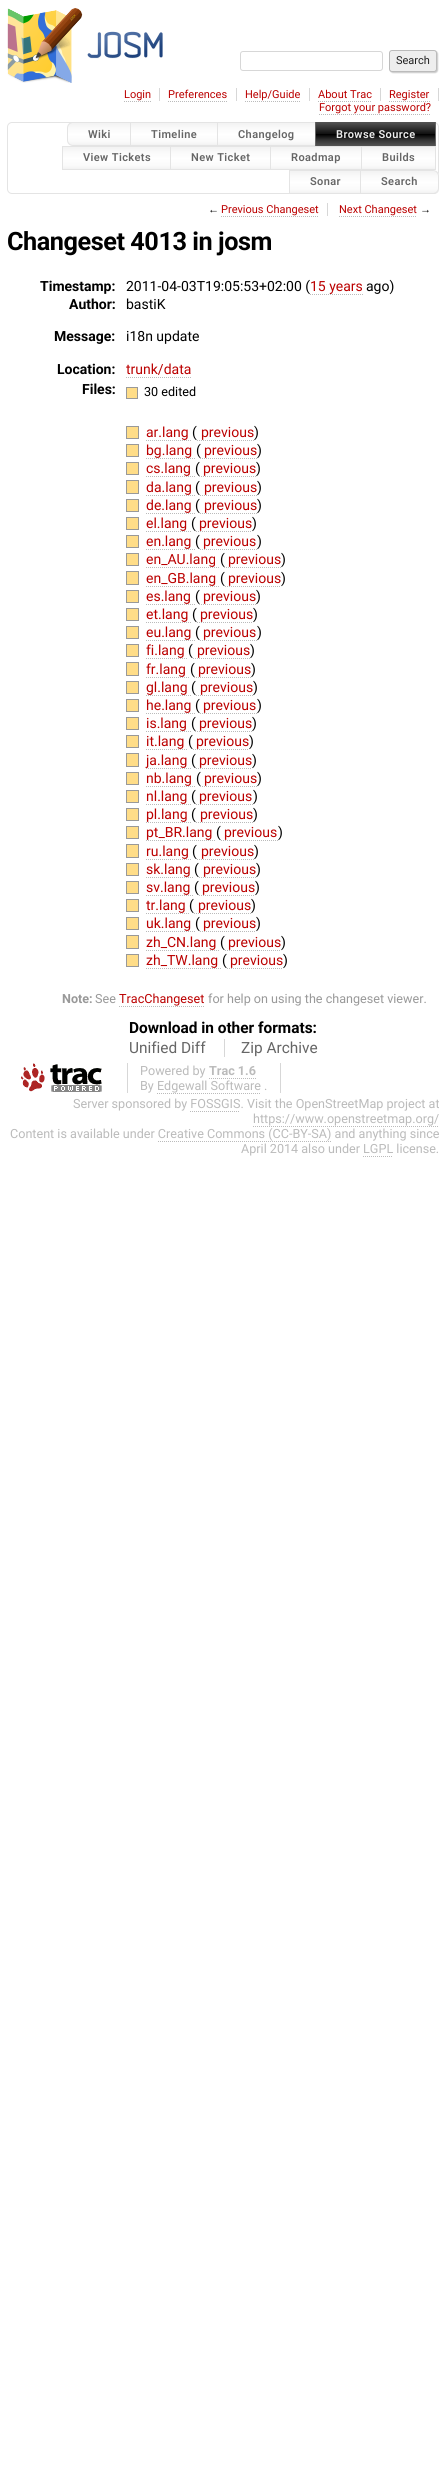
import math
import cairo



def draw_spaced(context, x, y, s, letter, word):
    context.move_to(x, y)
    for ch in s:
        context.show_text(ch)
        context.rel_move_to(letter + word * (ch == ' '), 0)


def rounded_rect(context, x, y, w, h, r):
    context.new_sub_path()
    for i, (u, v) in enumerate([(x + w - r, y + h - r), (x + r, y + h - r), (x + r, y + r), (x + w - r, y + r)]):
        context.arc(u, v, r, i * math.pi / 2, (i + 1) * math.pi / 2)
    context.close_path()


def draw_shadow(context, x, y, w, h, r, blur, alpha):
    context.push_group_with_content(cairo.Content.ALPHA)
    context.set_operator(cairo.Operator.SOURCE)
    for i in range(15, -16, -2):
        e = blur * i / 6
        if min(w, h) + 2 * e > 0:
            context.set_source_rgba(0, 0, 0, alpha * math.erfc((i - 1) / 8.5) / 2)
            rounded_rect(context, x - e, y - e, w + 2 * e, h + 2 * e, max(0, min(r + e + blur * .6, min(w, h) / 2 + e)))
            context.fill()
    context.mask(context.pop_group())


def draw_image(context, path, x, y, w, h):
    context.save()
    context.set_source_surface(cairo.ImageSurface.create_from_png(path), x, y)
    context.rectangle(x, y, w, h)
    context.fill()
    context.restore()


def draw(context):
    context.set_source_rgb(1, 1, 1)
    context.paint()
    draw_image(context, "images/1.png", 7, 8, 156, 75)
    rounded_rect(context, 240.5, 51.5, 142, 19, 2.5)
    context.set_source_rgb(215 / 255, 215 / 255, 215 / 255)
    context.set_line_width(1)
    context.stroke()
    context.set_source_rgb(204 / 255, 204 / 255, 204 / 255)
    draw_shadow(context, 390, 51, 48, 22, 3, 0.5, 1)
    context.set_source_rgb(238 / 255, 238 / 255, 238 / 255)
    rounded_rect(context, 389.5, 50.5, 47, 21, 2.5)
    context.fill_preserve()
    context.set_source_rgb(187 / 255, 187 / 255, 187 / 255)
    context.stroke()
    context.set_source_rgb(215 / 255, 215 / 255, 215 / 255)
    context.rectangle(159, 88, 1, 13)
    context.fill()
    context.new_path()
    context.move_to(124, 101.5)
    context.line_to(151, 101.5)
    context.set_source_rgb(187 / 255, 187 / 255, 187 / 255)
    context.set_dash([1, 1])
    context.stroke()
    context.set_source_rgb(215 / 255, 215 / 255, 215 / 255)
    context.rectangle(236, 88, 1, 13)
    context.fill()
    context.new_path()
    context.move_to(168, 101.5)
    context.line_to(228, 101.5)
    context.set_source_rgb(187 / 255, 187 / 255, 187 / 255)
    context.stroke()
    context.set_source_rgb(215 / 255, 215 / 255, 215 / 255)
    context.rectangle(309, 88, 1, 13)
    context.fill()
    context.new_path()
    context.move_to(245, 101.5)
    context.line_to(300, 101.5)
    context.set_source_rgb(187 / 255, 187 / 255, 187 / 255)
    context.stroke()
    context.set_source_rgb(215 / 255, 215 / 255, 215 / 255)
    context.rectangle(380, 88, 1, 13)
    context.fill()
    context.new_path()
    context.move_to(318, 101.5)
    context.line_to(372, 101.5)
    context.set_source_rgb(187 / 255, 187 / 255, 187 / 255)
    context.stroke()
    context.set_source_rgb(215 / 255, 215 / 255, 215 / 255)
    context.rectangle(438, 88, 1, 13)
    context.fill()
    context.new_path()
    context.move_to(389, 101.5)
    context.line_to(430, 101.5)
    context.set_source_rgb(187 / 255, 187 / 255, 187 / 255)
    context.stroke()
    context.new_path()
    context.move_to(319, 114.5)
    context.line_to(431, 114.5)
    context.stroke()
    rounded_rect(context, 7.5, 122.5, 431, 71, 4.5)
    context.set_source_rgb(228 / 255, 228 / 255, 228 / 255)
    context.set_dash([])
    context.stroke()
    context.save()
    context.new_path()
    context.move_to(73, 122)
    context.line_to(132, 122)
    context.line_to(132, 146)
    context.line_to(73, 146)
    context.curve_to(69.5, 146, 67, 143.5, 67, 140)
    context.line_to(67, 128)
    context.curve_to(67, 124.5, 69.5, 122, 73, 122)
    context.close_path()
    context.clip()
    gradient = cairo.LinearGradient(100, 123, 100, 145)
    gradient.add_color_stop_rgba(0, 242 / 255, 242 / 255, 242 / 255, 1)
    gradient.add_color_stop_rgba(0.25, 250 / 255, 250 / 255, 250 / 255, 1)
    gradient.add_color_stop_rgba(0.49, 254 / 255, 254 / 255, 254 / 255, 1)
    gradient.add_color_stop_rgba(0.51, 1, 1, 1, 1)
    gradient.add_color_stop_rgba(0.85, 250 / 255, 250 / 255, 250 / 255, 1)
    gradient.add_color_stop_rgba(1, 242 / 255, 242 / 255, 242 / 255, 1)
    context.set_source(gradient)
    context.rectangle(67, 123, 63, 22)
    context.fill()
    context.restore()
    context.new_path()
    context.move_to(73, 122.5)
    context.line_to(131.5, 122.5)
    context.line_to(131.5, 145.5)
    context.line_to(73, 145.5)
    context.curve_to(70, 145.5, 67.5, 143, 67.5, 140)
    context.line_to(67.5, 128)
    context.curve_to(67.5, 125, 70, 122.5, 73, 122.5)
    context.close_path()
    context.stroke()
    gradient = cairo.LinearGradient(174, 123, 174, 145)
    gradient.add_color_stop_rgba(0, 242 / 255, 242 / 255, 242 / 255, 1)
    gradient.add_color_stop_rgba(0.25, 250 / 255, 250 / 255, 250 / 255, 1)
    gradient.add_color_stop_rgba(0.49, 254 / 255, 254 / 255, 254 / 255, 1)
    gradient.add_color_stop_rgba(0.51, 1, 1, 1, 1)
    gradient.add_color_stop_rgba(0.85, 250 / 255, 250 / 255, 250 / 255, 1)
    gradient.add_color_stop_rgba(1, 242 / 255, 242 / 255, 242 / 255, 1)
    context.set_source(gradient)
    context.rectangle(131, 123, 86, 22)
    context.fill()
    context.rectangle(130.5, 122.5, 87, 23)
    context.set_source_rgb(228 / 255, 228 / 255, 228 / 255)
    context.stroke()
    gradient = cairo.LinearGradient(267, 123, 267, 145)
    gradient.add_color_stop_rgba(0, 242 / 255, 242 / 255, 242 / 255, 1)
    gradient.add_color_stop_rgba(0.25, 250 / 255, 250 / 255, 250 / 255, 1)
    gradient.add_color_stop_rgba(0.49, 254 / 255, 254 / 255, 254 / 255, 1)
    gradient.add_color_stop_rgba(0.51, 1, 1, 1, 1)
    gradient.add_color_stop_rgba(0.85, 250 / 255, 250 / 255, 250 / 255, 1)
    gradient.add_color_stop_rgba(1, 242 / 255, 242 / 255, 242 / 255, 1)
    context.set_source(gradient)
    context.rectangle(218, 123, 97, 22)
    context.fill()
    context.rectangle(217.5, 122.5, 98, 23)
    context.set_source_rgb(228 / 255, 228 / 255, 228 / 255)
    context.stroke()
    context.rectangle(315.5, 122.5, 120, 23)
    context.set_source_rgb(102 / 255, 102 / 255, 102 / 255)
    context.stroke()
    gradient = cairo.LinearGradient(376, 122, 376, 146)
    gradient.add_color_stop_rgba(0, 85 / 255, 85 / 255, 85 / 255, 1)
    gradient.add_color_stop_rgba(0.25, 51 / 255, 51 / 255, 51 / 255, 1)
    gradient.add_color_stop_rgba(0.49, 17 / 255, 17 / 255, 17 / 255, 1)
    gradient.add_color_stop_rgba(0.51, 0, 0, 0, 1)
    gradient.add_color_stop_rgba(0.75, 51 / 255, 51 / 255, 51 / 255, 1)
    gradient.add_color_stop_rgba(1, 85 / 255, 85 / 255, 85 / 255, 1)
    context.set_source(gradient)
    context.rectangle(316, 122, 119, 24)
    context.fill()
    gradient = cairo.LinearGradient(117, 147, 117, 169)
    gradient.add_color_stop_rgba(0, 242 / 255, 242 / 255, 242 / 255, 1)
    gradient.add_color_stop_rgba(0.25, 250 / 255, 250 / 255, 250 / 255, 1)
    gradient.add_color_stop_rgba(0.49, 254 / 255, 254 / 255, 254 / 255, 1)
    gradient.add_color_stop_rgba(0.51, 1, 1, 1, 1)
    gradient.add_color_stop_rgba(0.85, 250 / 255, 250 / 255, 250 / 255, 1)
    gradient.add_color_stop_rgba(1, 242 / 255, 242 / 255, 242 / 255, 1)
    context.set_source(gradient)
    context.rectangle(63, 147, 107, 22)
    context.fill()
    context.rectangle(62.5, 146.5, 108, 23)
    context.set_source_rgb(228 / 255, 228 / 255, 228 / 255)
    context.stroke()
    gradient = cairo.LinearGradient(221, 147, 221, 169)
    gradient.add_color_stop_rgba(0, 242 / 255, 242 / 255, 242 / 255, 1)
    gradient.add_color_stop_rgba(0.25, 250 / 255, 250 / 255, 250 / 255, 1)
    gradient.add_color_stop_rgba(0.49, 254 / 255, 254 / 255, 254 / 255, 1)
    gradient.add_color_stop_rgba(0.51, 1, 1, 1, 1)
    gradient.add_color_stop_rgba(0.85, 250 / 255, 250 / 255, 250 / 255, 1)
    gradient.add_color_stop_rgba(1, 242 / 255, 242 / 255, 242 / 255, 1)
    context.set_source(gradient)
    context.rectangle(171, 147, 99, 22)
    context.fill()
    context.rectangle(170.5, 146.5, 100, 23)
    context.set_source_rgb(228 / 255, 228 / 255, 228 / 255)
    context.stroke()
    gradient = cairo.LinearGradient(316, 147, 316, 169)
    gradient.add_color_stop_rgba(0, 242 / 255, 242 / 255, 242 / 255, 1)
    gradient.add_color_stop_rgba(0.25, 250 / 255, 250 / 255, 250 / 255, 1)
    gradient.add_color_stop_rgba(0.49, 254 / 255, 254 / 255, 254 / 255, 1)
    gradient.add_color_stop_rgba(0.51, 1, 1, 1, 1)
    gradient.add_color_stop_rgba(0.85, 250 / 255, 250 / 255, 250 / 255, 1)
    gradient.add_color_stop_rgba(1, 242 / 255, 242 / 255, 242 / 255, 1)
    context.set_source(gradient)
    context.rectangle(271, 147, 90, 22)
    context.fill()
    context.rectangle(270.5, 146.5, 91, 23)
    context.set_source_rgb(228 / 255, 228 / 255, 228 / 255)
    context.stroke()
    gradient = cairo.LinearGradient(399, 147, 399, 169)
    gradient.add_color_stop_rgba(0, 242 / 255, 242 / 255, 242 / 255, 1)
    gradient.add_color_stop_rgba(0.25, 250 / 255, 250 / 255, 250 / 255, 1)
    gradient.add_color_stop_rgba(0.49, 254 / 255, 254 / 255, 254 / 255, 1)
    gradient.add_color_stop_rgba(0.51, 1, 1, 1, 1)
    gradient.add_color_stop_rgba(0.85, 250 / 255, 250 / 255, 250 / 255, 1)
    gradient.add_color_stop_rgba(1, 242 / 255, 242 / 255, 242 / 255, 1)
    context.set_source(gradient)
    context.rectangle(362, 147, 73, 22)
    context.fill()
    context.rectangle(361.5, 146.5, 74, 23)
    context.set_source_rgb(228 / 255, 228 / 255, 228 / 255)
    context.stroke()
    gradient = cairo.LinearGradient(325, 171, 325, 193)
    gradient.add_color_stop_rgba(0, 242 / 255, 242 / 255, 242 / 255, 1)
    gradient.add_color_stop_rgba(0.25, 250 / 255, 250 / 255, 250 / 255, 1)
    gradient.add_color_stop_rgba(0.49, 254 / 255, 254 / 255, 254 / 255, 1)
    gradient.add_color_stop_rgba(0.51, 1, 1, 1, 1)
    gradient.add_color_stop_rgba(0.85, 250 / 255, 250 / 255, 250 / 255, 1)
    gradient.add_color_stop_rgba(1, 242 / 255, 242 / 255, 242 / 255, 1)
    context.set_source(gradient)
    context.rectangle(290, 171, 70, 22)
    context.fill()
    context.rectangle(289.5, 170.5, 71, 23)
    context.set_source_rgb(228 / 255, 228 / 255, 228 / 255)
    context.stroke()
    context.save()
    context.new_path()
    context.move_to(360, 170)
    context.line_to(433, 170)
    context.curve_to(436.5, 170, 439, 172.5, 439, 176)
    context.line_to(439, 188)
    context.curve_to(439, 191.5, 436.5, 194, 433, 194)
    context.line_to(360, 194)
    context.close_path()
    context.clip()
    gradient = cairo.LinearGradient(400, 171, 400, 193)
    gradient.add_color_stop_rgba(0, 242 / 255, 242 / 255, 242 / 255, 1)
    gradient.add_color_stop_rgba(0.25, 250 / 255, 250 / 255, 250 / 255, 1)
    gradient.add_color_stop_rgba(0.49, 254 / 255, 254 / 255, 254 / 255, 1)
    gradient.add_color_stop_rgba(0.51, 1, 1, 1, 1)
    gradient.add_color_stop_rgba(0.85, 250 / 255, 250 / 255, 250 / 255, 1)
    gradient.add_color_stop_rgba(1, 242 / 255, 242 / 255, 242 / 255, 1)
    context.set_source(gradient)
    context.rectangle(361, 171, 78, 22)
    context.fill()
    context.restore()
    context.new_path()
    context.move_to(360.5, 170.5)
    context.line_to(433, 170.5)
    context.curve_to(436, 170.5, 438.5, 173, 438.5, 176)
    context.line_to(438.5, 188)
    context.curve_to(438.5, 191, 436, 193.5, 433, 193.5)
    context.line_to(360.5, 193.5)
    context.close_path()
    context.stroke()
    context.set_source_rgb(215 / 255, 215 / 255, 215 / 255)
    context.rectangle(327, 203, 1, 13)
    context.fill()
    context.new_path()
    context.move_to(221, 216.5)
    context.line_to(319, 216.5)
    context.set_source_rgb(187 / 255, 187 / 255, 187 / 255)
    context.set_dash([1, 1])
    context.stroke()
    context.new_path()
    context.move_to(339, 216.5)
    context.line_to(417, 216.5)
    context.stroke()
    context.new_path()
    context.move_to(310, 294.5)
    context.line_to(363, 294.5)
    context.stroke()
    context.new_path()
    context.move_to(126, 377.5)
    context.line_to(191, 377.5)
    context.stroke()
    context.set_source_rgb(1, 221 / 255, 136 / 255)
    context.rectangle(126.5, 387.5, 11, 11)
    context.fill_preserve()
    context.set_source_rgb(153 / 255, 153 / 255, 153 / 255)
    context.set_dash([])
    context.stroke()
    context.set_source_rgb(1, 221 / 255, 136 / 255)
    context.rectangle(126.5, 426.5, 12, 12)
    context.fill_preserve()
    context.set_source_rgb(153 / 255, 153 / 255, 153 / 255)
    context.stroke()
    context.new_path()
    context.move_to(146, 440.5)
    context.line_to(192, 440.5)
    context.set_source_rgb(187 / 255, 187 / 255, 187 / 255)
    context.set_dash([1, 1])
    context.stroke()
    context.new_path()
    context.move_to(197, 440.5)
    context.line_to(254, 440.5)
    context.stroke()
    context.set_source_rgb(1, 221 / 255, 136 / 255)
    context.rectangle(126.5, 444.5, 12, 12)
    context.fill_preserve()
    context.set_source_rgb(153 / 255, 153 / 255, 153 / 255)
    context.set_dash([])
    context.stroke()
    context.new_path()
    context.move_to(146, 458.5)
    context.line_to(196, 458.5)
    context.set_source_rgb(187 / 255, 187 / 255, 187 / 255)
    context.set_dash([1, 1])
    context.stroke()
    context.set_source_rgb(1, 221 / 255, 136 / 255)
    context.rectangle(126.5, 462.5, 12, 12)
    context.fill_preserve()
    context.set_source_rgb(153 / 255, 153 / 255, 153 / 255)
    context.set_dash([])
    context.stroke()
    context.new_path()
    context.move_to(146, 476.5)
    context.line_to(195, 476.5)
    context.set_source_rgb(187 / 255, 187 / 255, 187 / 255)
    context.set_dash([1, 1])
    context.stroke()
    context.set_source_rgb(1, 221 / 255, 136 / 255)
    context.rectangle(126.5, 480.5, 12, 13)
    context.fill_preserve()
    context.set_source_rgb(153 / 255, 153 / 255, 153 / 255)
    context.set_dash([])
    context.stroke()
    context.new_path()
    context.move_to(146, 495.5)
    context.line_to(195, 495.5)
    context.set_source_rgb(187 / 255, 187 / 255, 187 / 255)
    context.set_dash([1, 1])
    context.stroke()
    context.new_path()
    context.move_to(200, 495.5)
    context.line_to(257, 495.5)
    context.stroke()
    context.set_source_rgb(1, 221 / 255, 136 / 255)
    context.rectangle(126.5, 499.5, 12, 12)
    context.fill_preserve()
    context.set_source_rgb(153 / 255, 153 / 255, 153 / 255)
    context.set_dash([])
    context.stroke()
    context.new_path()
    context.move_to(146, 513.5)
    context.line_to(195, 513.5)
    context.set_source_rgb(187 / 255, 187 / 255, 187 / 255)
    context.set_dash([1, 1])
    context.stroke()
    context.new_path()
    context.move_to(200, 513.5)
    context.line_to(257, 513.5)
    context.stroke()
    context.set_source_rgb(1, 221 / 255, 136 / 255)
    context.rectangle(126.5, 517.5, 12, 12)
    context.fill_preserve()
    context.set_source_rgb(153 / 255, 153 / 255, 153 / 255)
    context.set_dash([])
    context.stroke()
    context.new_path()
    context.move_to(146, 531.5)
    context.line_to(191, 531.5)
    context.set_source_rgb(187 / 255, 187 / 255, 187 / 255)
    context.set_dash([1, 1])
    context.stroke()
    context.new_path()
    context.move_to(196, 531.5)
    context.line_to(252, 531.5)
    context.stroke()
    context.set_source_rgb(1, 221 / 255, 136 / 255)
    context.rectangle(126.5, 535.5, 12, 12)
    context.fill_preserve()
    context.set_source_rgb(153 / 255, 153 / 255, 153 / 255)
    context.set_dash([])
    context.stroke()
    context.new_path()
    context.move_to(146, 549.5)
    context.line_to(195, 549.5)
    context.set_source_rgb(187 / 255, 187 / 255, 187 / 255)
    context.set_dash([1, 1])
    context.stroke()
    context.new_path()
    context.move_to(200, 549.5)
    context.line_to(257, 549.5)
    context.stroke()
    context.set_source_rgb(1, 221 / 255, 136 / 255)
    context.rectangle(126.5, 553.5, 12, 12)
    context.fill_preserve()
    context.set_source_rgb(153 / 255, 153 / 255, 153 / 255)
    context.set_dash([])
    context.stroke()
    context.new_path()
    context.move_to(146, 567.5)
    context.line_to(220, 567.5)
    context.set_source_rgb(187 / 255, 187 / 255, 187 / 255)
    context.set_dash([1, 1])
    context.stroke()
    context.set_source_rgb(1, 221 / 255, 136 / 255)
    context.rectangle(126.5, 571.5, 12, 13)
    context.fill_preserve()
    context.set_source_rgb(153 / 255, 153 / 255, 153 / 255)
    context.set_dash([])
    context.stroke()
    context.new_path()
    context.move_to(146, 586.5)
    context.line_to(220, 586.5)
    context.set_source_rgb(187 / 255, 187 / 255, 187 / 255)
    context.set_dash([1, 1])
    context.stroke()
    context.new_path()
    context.move_to(225, 586.5)
    context.line_to(281, 586.5)
    context.stroke()
    context.set_source_rgb(1, 221 / 255, 136 / 255)
    context.rectangle(126.5, 590.5, 12, 12)
    context.fill_preserve()
    context.set_source_rgb(153 / 255, 153 / 255, 153 / 255)
    context.set_dash([])
    context.stroke()
    context.new_path()
    context.move_to(146, 604.5)
    context.line_to(195, 604.5)
    context.set_source_rgb(187 / 255, 187 / 255, 187 / 255)
    context.set_dash([1, 1])
    context.stroke()
    context.set_source_rgb(1, 221 / 255, 136 / 255)
    context.rectangle(126.5, 608.5, 12, 12)
    context.fill_preserve()
    context.set_source_rgb(153 / 255, 153 / 255, 153 / 255)
    context.set_dash([])
    context.stroke()
    context.new_path()
    context.move_to(146, 622.5)
    context.line_to(192, 622.5)
    context.set_source_rgb(187 / 255, 187 / 255, 187 / 255)
    context.set_dash([1, 1])
    context.stroke()
    context.new_path()
    context.move_to(197, 622.5)
    context.line_to(253, 622.5)
    context.stroke()
    context.set_source_rgb(1, 221 / 255, 136 / 255)
    context.rectangle(126.5, 626.5, 12, 12)
    context.fill_preserve()
    context.set_source_rgb(153 / 255, 153 / 255, 153 / 255)
    context.set_dash([])
    context.stroke()
    context.new_path()
    context.move_to(146, 640.5)
    context.line_to(195, 640.5)
    context.set_source_rgb(187 / 255, 187 / 255, 187 / 255)
    context.set_dash([1, 1])
    context.stroke()
    context.new_path()
    context.move_to(200, 640.5)
    context.line_to(257, 640.5)
    context.stroke()
    context.set_source_rgb(1, 221 / 255, 136 / 255)
    context.rectangle(126.5, 644.5, 12, 12)
    context.fill_preserve()
    context.set_source_rgb(153 / 255, 153 / 255, 153 / 255)
    context.set_dash([])
    context.stroke()
    context.new_path()
    context.move_to(146, 658.5)
    context.line_to(188, 658.5)
    context.set_source_rgb(187 / 255, 187 / 255, 187 / 255)
    context.set_dash([1, 1])
    context.stroke()
    context.new_path()
    context.move_to(193, 658.5)
    context.line_to(250, 658.5)
    context.stroke()
    context.set_source_rgb(1, 221 / 255, 136 / 255)
    context.rectangle(126.5, 662.5, 12, 13)
    context.fill_preserve()
    context.set_source_rgb(153 / 255, 153 / 255, 153 / 255)
    context.set_dash([])
    context.stroke()
    context.new_path()
    context.move_to(146, 677.5)
    context.line_to(190, 677.5)
    context.set_source_rgb(187 / 255, 187 / 255, 187 / 255)
    context.set_dash([1, 1])
    context.stroke()
    context.set_source_rgb(1, 221 / 255, 136 / 255)
    context.rectangle(126.5, 681.5, 12, 12)
    context.fill_preserve()
    context.set_source_rgb(153 / 255, 153 / 255, 153 / 255)
    context.set_dash([])
    context.stroke()
    context.new_path()
    context.move_to(146, 695.5)
    context.line_to(191, 695.5)
    context.set_source_rgb(187 / 255, 187 / 255, 187 / 255)
    context.set_dash([1, 1])
    context.stroke()
    context.new_path()
    context.move_to(196, 695.5)
    context.line_to(253, 695.5)
    context.stroke()
    context.set_source_rgb(1, 221 / 255, 136 / 255)
    context.rectangle(126.5, 699.5, 12, 12)
    context.fill_preserve()
    context.set_source_rgb(153 / 255, 153 / 255, 153 / 255)
    context.set_dash([])
    context.stroke()
    context.new_path()
    context.move_to(146, 713.5)
    context.line_to(195, 713.5)
    context.set_source_rgb(187 / 255, 187 / 255, 187 / 255)
    context.set_dash([1, 1])
    context.stroke()
    context.new_path()
    context.move_to(200, 713.5)
    context.line_to(257, 713.5)
    context.stroke()
    context.set_source_rgb(1, 221 / 255, 136 / 255)
    context.rectangle(126.5, 717.5, 12, 12)
    context.fill_preserve()
    context.set_source_rgb(153 / 255, 153 / 255, 153 / 255)
    context.set_dash([])
    context.stroke()
    context.new_path()
    context.move_to(146, 731.5)
    context.line_to(191, 731.5)
    context.set_source_rgb(187 / 255, 187 / 255, 187 / 255)
    context.set_dash([1, 1])
    context.stroke()
    context.set_source_rgb(1, 221 / 255, 136 / 255)
    context.rectangle(126.5, 735.5, 12, 12)
    context.fill_preserve()
    context.set_source_rgb(153 / 255, 153 / 255, 153 / 255)
    context.set_dash([])
    context.stroke()
    context.new_path()
    context.move_to(146, 749.5)
    context.line_to(188, 749.5)
    context.set_source_rgb(187 / 255, 187 / 255, 187 / 255)
    context.set_dash([1, 1])
    context.stroke()
    context.new_path()
    context.move_to(193, 749.5)
    context.line_to(249, 749.5)
    context.stroke()
    context.set_source_rgb(1, 221 / 255, 136 / 255)
    context.rectangle(126.5, 753.5, 12, 13)
    context.fill_preserve()
    context.set_source_rgb(153 / 255, 153 / 255, 153 / 255)
    context.set_dash([])
    context.stroke()
    context.new_path()
    context.move_to(146, 768.5)
    context.line_to(191, 768.5)
    context.set_source_rgb(187 / 255, 187 / 255, 187 / 255)
    context.set_dash([1, 1])
    context.stroke()
    context.new_path()
    context.move_to(196, 768.5)
    context.line_to(252, 768.5)
    context.stroke()
    context.set_source_rgb(1, 221 / 255, 136 / 255)
    context.rectangle(126.5, 772.5, 12, 12)
    context.fill_preserve()
    context.set_source_rgb(153 / 255, 153 / 255, 153 / 255)
    context.set_dash([])
    context.stroke()
    context.new_path()
    context.move_to(146, 786.5)
    context.line_to(196, 786.5)
    context.set_source_rgb(187 / 255, 187 / 255, 187 / 255)
    context.set_dash([1, 1])
    context.stroke()
    context.set_source_rgb(1, 221 / 255, 136 / 255)
    context.rectangle(126.5, 790.5, 12, 12)
    context.fill_preserve()
    context.set_source_rgb(153 / 255, 153 / 255, 153 / 255)
    context.set_dash([])
    context.stroke()
    context.new_path()
    context.move_to(146, 804.5)
    context.line_to(191, 804.5)
    context.set_source_rgb(187 / 255, 187 / 255, 187 / 255)
    context.set_dash([1, 1])
    context.stroke()
    context.new_path()
    context.move_to(196, 804.5)
    context.line_to(253, 804.5)
    context.stroke()
    context.set_source_rgb(1, 221 / 255, 136 / 255)
    context.rectangle(126.5, 808.5, 12, 12)
    context.fill_preserve()
    context.set_source_rgb(153 / 255, 153 / 255, 153 / 255)
    context.set_dash([])
    context.stroke()
    context.new_path()
    context.move_to(146, 822.5)
    context.line_to(191, 822.5)
    context.set_source_rgb(187 / 255, 187 / 255, 187 / 255)
    context.set_dash([1, 1])
    context.stroke()
    context.new_path()
    context.move_to(196, 822.5)
    context.line_to(253, 822.5)
    context.stroke()
    context.set_source_rgb(1, 221 / 255, 136 / 255)
    context.rectangle(126.5, 826.5, 12, 12)
    context.fill_preserve()
    context.set_source_rgb(153 / 255, 153 / 255, 153 / 255)
    context.set_dash([])
    context.stroke()
    context.new_path()
    context.move_to(146, 840.5)
    context.line_to(216, 840.5)
    context.set_source_rgb(187 / 255, 187 / 255, 187 / 255)
    context.set_dash([1, 1])
    context.stroke()
    context.new_path()
    context.move_to(221, 840.5)
    context.line_to(278, 840.5)
    context.stroke()
    context.set_source_rgb(1, 221 / 255, 136 / 255)
    context.rectangle(126.5, 844.5, 12, 13)
    context.fill_preserve()
    context.set_source_rgb(153 / 255, 153 / 255, 153 / 255)
    context.set_dash([])
    context.stroke()
    context.new_path()
    context.move_to(146, 859.5)
    context.line_to(192, 859.5)
    context.set_source_rgb(187 / 255, 187 / 255, 187 / 255)
    context.set_dash([1, 1])
    context.stroke()
    context.new_path()
    context.move_to(197, 859.5)
    context.line_to(254, 859.5)
    context.stroke()
    context.set_source_rgb(1, 221 / 255, 136 / 255)
    context.rectangle(126.5, 863.5, 12, 12)
    context.fill_preserve()
    context.set_source_rgb(153 / 255, 153 / 255, 153 / 255)
    context.set_dash([])
    context.stroke()
    context.new_path()
    context.move_to(146, 877.5)
    context.line_to(194, 877.5)
    context.set_source_rgb(187 / 255, 187 / 255, 187 / 255)
    context.set_dash([1, 1])
    context.stroke()
    context.new_path()
    context.move_to(199, 877.5)
    context.line_to(256, 877.5)
    context.stroke()
    context.set_source_rgb(1, 221 / 255, 136 / 255)
    context.rectangle(126.5, 881.5, 12, 12)
    context.fill_preserve()
    context.set_source_rgb(153 / 255, 153 / 255, 153 / 255)
    context.set_dash([])
    context.stroke()
    context.new_path()
    context.move_to(146, 895.5)
    context.line_to(194, 895.5)
    context.set_source_rgb(187 / 255, 187 / 255, 187 / 255)
    context.set_dash([1, 1])
    context.stroke()
    context.new_path()
    context.move_to(199, 895.5)
    context.line_to(255, 895.5)
    context.stroke()
    context.set_source_rgb(1, 221 / 255, 136 / 255)
    context.rectangle(126.5, 899.5, 12, 12)
    context.fill_preserve()
    context.set_source_rgb(153 / 255, 153 / 255, 153 / 255)
    context.set_dash([])
    context.stroke()
    context.new_path()
    context.move_to(146, 913.5)
    context.line_to(189, 913.5)
    context.set_source_rgb(187 / 255, 187 / 255, 187 / 255)
    context.set_dash([1, 1])
    context.stroke()
    context.new_path()
    context.move_to(194, 913.5)
    context.line_to(251, 913.5)
    context.stroke()
    context.set_source_rgb(1, 221 / 255, 136 / 255)
    context.rectangle(126.5, 917.5, 12, 12)
    context.fill_preserve()
    context.set_source_rgb(153 / 255, 153 / 255, 153 / 255)
    context.set_dash([])
    context.stroke()
    context.new_path()
    context.move_to(146, 931.5)
    context.line_to(195, 931.5)
    context.set_source_rgb(187 / 255, 187 / 255, 187 / 255)
    context.set_dash([1, 1])
    context.stroke()
    context.new_path()
    context.move_to(200, 931.5)
    context.line_to(256, 931.5)
    context.stroke()
    context.set_source_rgb(1, 221 / 255, 136 / 255)
    context.rectangle(126.5, 935.5, 12, 13)
    context.fill_preserve()
    context.set_source_rgb(153 / 255, 153 / 255, 153 / 255)
    context.set_dash([])
    context.stroke()
    context.new_path()
    context.move_to(146, 950.5)
    context.line_to(220, 950.5)
    context.set_source_rgb(187 / 255, 187 / 255, 187 / 255)
    context.set_dash([1, 1])
    context.stroke()
    context.new_path()
    context.move_to(225, 950.5)
    context.line_to(281, 950.5)
    context.stroke()
    context.set_source_rgb(1, 221 / 255, 136 / 255)
    context.rectangle(126.5, 954.5, 12, 12)
    context.fill_preserve()
    context.set_source_rgb(153 / 255, 153 / 255, 153 / 255)
    context.set_dash([])
    context.stroke()
    context.new_path()
    context.move_to(146, 968.5)
    context.line_to(222, 968.5)
    context.set_source_rgb(187 / 255, 187 / 255, 187 / 255)
    context.set_dash([1, 1])
    context.stroke()
    context.new_path()
    context.move_to(227, 968.5)
    context.line_to(283, 968.5)
    context.stroke()
    context.new_path()
    context.move_to(119, 1006.5)
    context.line_to(205, 1006.5)
    context.stroke()
    context.set_source_rgb(215 / 255, 215 / 255, 215 / 255)
    context.rectangle(224, 1039, 1, 18)
    context.fill()
    draw_image(context, "images/2.png", 21, 1063, 81, 29)
    context.rectangle(280, 1063, 1, 30)
    context.fill()
    context.rectangle(127, 1063, 1, 30)
    context.fill()
    context.new_path()
    context.move_to(209, 1078.5)
    context.line_to(256, 1078.5)
    context.set_source_rgb(187 / 255, 187 / 255, 187 / 255)
    context.stroke()
    context.new_path()
    context.move_to(157, 1093.5)
    context.line_to(261, 1093.5)
    context.stroke()
    context.new_path()
    context.move_to(190, 1111.5)
    context.line_to(240, 1111.5)
    context.stroke()
    context.new_path()
    context.move_to(253, 1126.5)
    context.line_to(439, 1126.5)
    context.stroke()
    context.new_path()
    context.move_to(158, 1141.5)
    context.line_to(331, 1141.5)
    context.stroke()
    context.new_path()
    context.move_to(363, 1156.5)
    context.line_to(393, 1156.5)
    context.stroke()
    context.select_font_face("Roboto")
    context.set_font_size(11)
    context.set_source_rgb(34 / 255, 34 / 255, 34 / 255)
    context.move_to(396, 64)
    context.show_text("Search")
    context.set_source_rgb(187 / 255, 0, 0)
    context.move_to(124, 98)
    context.show_text("Login")
    context.move_to(168, 98)
    context.show_text("Preferences")
    context.move_to(245, 98)
    context.show_text("Help/Guide")
    context.move_to(318, 98)
    context.show_text("About Trac")
    context.move_to(389, 98)
    context.show_text("Register")
    context.move_to(319, 111)
    context.show_text("Forgot your password?")
    context.select_font_face("Roboto SemiBold")
    context.set_source_rgb(102 / 255, 102 / 255, 102 / 255)
    draw_spaced(context, 88, 138, "Wiki", 0.4, 0)
    draw_spaced(context, 151, 138, "Timeline", 0.4, 0)
    draw_spaced(context, 238, 138, "Changelog", 0.4, 0)
    context.set_source_rgb(238 / 255, 238 / 255, 238 / 255)
    draw_spaced(context, 336, 138, "Browse Source", 0.4, 0)
    context.set_source_rgb(102 / 255, 102 / 255, 102 / 255)
    draw_spaced(context, 83, 161, "View Tickets", 0.4, 0)
    draw_spaced(context, 191, 161, "New Ticket", 0.4, 0)
    draw_spaced(context, 291, 161, "Roadmap", 0.4, 0)
    draw_spaced(context, 382, 161, "Builds", 0.4, 0)
    draw_spaced(context, 310, 185, "Sonar", 0.4, 0)
    draw_spaced(context, 381, 185, "Search", 0.4, 0)
    context.select_font_face("Liberation Sans")
    context.set_source_rgb(0, 0, 0)
    context.move_to(208, 213)
    context.show_text("←")
    context.select_font_face("Roboto")
    context.set_source_rgb(187 / 255, 0, 0)
    context.move_to(221, 213)
    context.show_text("Previous Changeset")
    context.move_to(339, 213)
    context.show_text("Next Changeset")
    context.select_font_face("Liberation Sans")
    context.set_source_rgb(0, 0, 0)
    context.move_to(420, 213)
    context.show_text("→")
    context.select_font_face("Roboto", cairo.FontSlant.NORMAL, cairo.FontWeight.BOLD)
    context.set_font_size(25.25)
    draw_spaced(context, 7, 250, "Changeset 4013 in josm", -0.45, 0)
    context.set_font_size(14)
    context.move_to(40, 291)
    context.show_text("Timestamp:")
    context.select_font_face("Roboto")
    context.move_to(126, 291)
    context.show_text("2011-04-03T19:05:53+02:00 (")
    context.set_source_rgb(187 / 255, 0, 0)
    context.move_to(310, 291)
    context.show_text("15 years")
    context.set_source_rgb(0, 0, 0)
    context.move_to(366, 291)
    context.show_text("ago)")
    context.select_font_face("Roboto", cairo.FontSlant.NORMAL, cairo.FontWeight.BOLD)
    context.move_to(69, 309)
    context.show_text("Author:")
    context.select_font_face("Roboto")
    context.move_to(126, 309)
    context.show_text("bastiK")
    context.select_font_face("Roboto", cairo.FontSlant.NORMAL, cairo.FontWeight.BOLD)
    context.move_to(54, 341)
    context.show_text("Message:")
    context.select_font_face("Roboto")
    context.move_to(126, 341)
    context.show_text("i18n update")
    context.select_font_face("Roboto", cairo.FontSlant.NORMAL, cairo.FontWeight.BOLD)
    context.move_to(57, 374)
    context.show_text("Location:")
    context.select_font_face("Roboto")
    context.set_source_rgb(187 / 255, 0, 0)
    context.move_to(126, 374)
    context.show_text("trunk/data")
    context.select_font_face("Roboto", cairo.FontSlant.NORMAL, cairo.FontWeight.BOLD)
    context.set_source_rgb(0, 0, 0)
    context.move_to(82, 394)
    context.show_text("Files:")
    context.select_font_face("Roboto")
    context.set_font_size(12.6)
    context.move_to(144, 396)
    context.show_text("30 edited")
    context.set_font_size(14)
    context.set_source_rgb(187 / 255, 0, 0)
    context.move_to(146, 437)
    context.show_text("ar.lang")
    context.set_source_rgb(0, 0, 0)
    context.move_to(192, 437)
    context.show_text("(")
    context.set_source_rgb(187 / 255, 0, 0)
    context.move_to(201, 437)
    context.show_text("previous")
    context.set_source_rgb(0, 0, 0)
    context.move_to(254, 437)
    context.show_text(")")
    context.set_source_rgb(187 / 255, 0, 0)
    context.move_to(146, 455)
    context.show_text("bg.lang")
    context.set_source_rgb(0, 0, 0)
    context.move_to(196, 455)
    context.show_text("(")
    context.set_source_rgb(187 / 255, 0, 0)
    context.move_to(204, 455)
    context.show_text("previous")
    context.new_path()
    context.move_to(200, 458.5)
    context.line_to(257, 458.5)
    context.set_source_rgb(187 / 255, 187 / 255, 187 / 255)
    context.stroke()
    context.set_source_rgb(0, 0, 0)
    context.move_to(257, 455)
    context.show_text(")")
    context.set_source_rgb(187 / 255, 0, 0)
    context.move_to(146, 473)
    context.show_text("cs.lang")
    context.set_source_rgb(0, 0, 0)
    context.move_to(195, 473)
    context.show_text("(")
    context.set_source_rgb(187 / 255, 0, 0)
    context.move_to(203, 473)
    context.show_text("previous")
    context.new_path()
    context.move_to(199, 476.5)
    context.line_to(256, 476.5)
    context.set_source_rgb(187 / 255, 187 / 255, 187 / 255)
    context.stroke()
    context.set_source_rgb(0, 0, 0)
    context.move_to(256, 473)
    context.show_text(")")
    context.set_source_rgb(187 / 255, 0, 0)
    context.move_to(146, 492)
    context.show_text("da.lang")
    context.set_source_rgb(0, 0, 0)
    context.move_to(195, 492)
    context.show_text("(")
    context.set_source_rgb(187 / 255, 0, 0)
    context.move_to(204, 492)
    context.show_text("previous")
    context.set_source_rgb(0, 0, 0)
    context.move_to(257, 492)
    context.show_text(")")
    context.set_source_rgb(187 / 255, 0, 0)
    context.move_to(146, 510)
    context.show_text("de.lang")
    context.set_source_rgb(0, 0, 0)
    context.move_to(195, 510)
    context.show_text("(")
    context.set_source_rgb(187 / 255, 0, 0)
    context.move_to(204, 510)
    context.show_text("previous")
    context.set_source_rgb(0, 0, 0)
    context.move_to(257, 510)
    context.show_text(")")
    context.set_source_rgb(187 / 255, 0, 0)
    context.move_to(146, 528)
    context.show_text("el.lang")
    context.set_source_rgb(0, 0, 0)
    context.move_to(191, 528)
    context.show_text("(")
    context.set_source_rgb(187 / 255, 0, 0)
    context.move_to(199, 528)
    context.show_text("previous")
    context.set_source_rgb(0, 0, 0)
    context.move_to(252, 528)
    context.show_text(")")
    context.set_source_rgb(187 / 255, 0, 0)
    context.move_to(146, 546)
    context.show_text("en.lang")
    context.set_source_rgb(0, 0, 0)
    context.move_to(195, 546)
    context.show_text("(")
    context.set_source_rgb(187 / 255, 0, 0)
    context.move_to(203, 546)
    context.show_text("previous")
    context.set_source_rgb(0, 0, 0)
    context.move_to(257, 546)
    context.show_text(")")
    context.set_source_rgb(187 / 255, 0, 0)
    context.move_to(146, 564)
    context.show_text("en_AU.lang")
    context.set_source_rgb(0, 0, 0)
    context.move_to(220, 564)
    context.show_text("(")
    context.set_source_rgb(187 / 255, 0, 0)
    context.move_to(228, 564)
    context.show_text("previous")
    context.new_path()
    context.move_to(224, 567.5)
    context.line_to(281, 567.5)
    context.set_source_rgb(187 / 255, 187 / 255, 187 / 255)
    context.stroke()
    context.set_source_rgb(0, 0, 0)
    context.move_to(281, 564)
    context.show_text(")")
    context.set_source_rgb(187 / 255, 0, 0)
    context.move_to(146, 583)
    context.show_text("en_GB.lang")
    context.set_source_rgb(0, 0, 0)
    context.move_to(220, 583)
    context.show_text("(")
    context.set_source_rgb(187 / 255, 0, 0)
    context.move_to(228, 583)
    context.show_text("previous")
    context.set_source_rgb(0, 0, 0)
    context.move_to(281, 583)
    context.show_text(")")
    context.set_source_rgb(187 / 255, 0, 0)
    context.move_to(146, 601)
    context.show_text("es.lang")
    context.set_source_rgb(0, 0, 0)
    context.move_to(195, 601)
    context.show_text("(")
    context.set_source_rgb(187 / 255, 0, 0)
    context.move_to(203, 601)
    context.show_text("previous")
    context.new_path()
    context.move_to(199, 604.5)
    context.line_to(256, 604.5)
    context.set_source_rgb(187 / 255, 187 / 255, 187 / 255)
    context.stroke()
    context.set_source_rgb(0, 0, 0)
    context.move_to(256, 601)
    context.show_text(")")
    context.set_source_rgb(187 / 255, 0, 0)
    context.move_to(146, 619)
    context.show_text("et.lang")
    context.set_source_rgb(0, 0, 0)
    context.move_to(192, 619)
    context.show_text("(")
    context.set_source_rgb(187 / 255, 0, 0)
    context.move_to(200, 619)
    context.show_text("previous")
    context.set_source_rgb(0, 0, 0)
    context.move_to(253, 619)
    context.show_text(")")
    context.set_source_rgb(187 / 255, 0, 0)
    context.move_to(146, 637)
    context.show_text("eu.lang")
    context.set_source_rgb(0, 0, 0)
    context.move_to(195, 637)
    context.show_text("(")
    context.set_source_rgb(187 / 255, 0, 0)
    context.move_to(203, 637)
    context.show_text("previous")
    context.set_source_rgb(0, 0, 0)
    context.move_to(257, 637)
    context.show_text(")")
    context.set_source_rgb(187 / 255, 0, 0)
    context.move_to(146, 655)
    context.show_text("fi.lang")
    context.set_source_rgb(0, 0, 0)
    context.move_to(188, 655)
    context.show_text("(")
    context.set_source_rgb(187 / 255, 0, 0)
    context.move_to(197, 655)
    context.show_text("previous")
    context.set_source_rgb(0, 0, 0)
    context.move_to(250, 655)
    context.show_text(")")
    context.set_source_rgb(187 / 255, 0, 0)
    context.move_to(146, 674)
    context.show_text("fr.lang")
    context.set_source_rgb(0, 0, 0)
    context.move_to(190, 674)
    context.show_text("(")
    context.set_source_rgb(187 / 255, 0, 0)
    context.move_to(198, 674)
    context.show_text("previous")
    context.new_path()
    context.move_to(194, 677.5)
    context.line_to(251, 677.5)
    context.set_source_rgb(187 / 255, 187 / 255, 187 / 255)
    context.stroke()
    context.set_source_rgb(0, 0, 0)
    context.move_to(251, 674)
    context.show_text(")")
    context.set_source_rgb(187 / 255, 0, 0)
    context.move_to(146, 692)
    context.show_text("gl.lang")
    context.set_source_rgb(0, 0, 0)
    context.move_to(191, 692)
    context.show_text("(")
    context.set_source_rgb(187 / 255, 0, 0)
    context.move_to(200, 692)
    context.show_text("previous")
    context.set_source_rgb(0, 0, 0)
    context.move_to(253, 692)
    context.show_text(")")
    context.set_source_rgb(187 / 255, 0, 0)
    context.move_to(146, 710)
    context.show_text("he.lang")
    context.set_source_rgb(0, 0, 0)
    context.move_to(195, 710)
    context.show_text("(")
    context.set_source_rgb(187 / 255, 0, 0)
    context.move_to(203, 710)
    context.show_text("previous")
    context.set_source_rgb(0, 0, 0)
    context.move_to(257, 710)
    context.show_text(")")
    context.set_source_rgb(187 / 255, 0, 0)
    context.move_to(146, 728)
    context.show_text("is.lang")
    context.set_source_rgb(0, 0, 0)
    context.move_to(191, 728)
    context.show_text("(")
    context.set_source_rgb(187 / 255, 0, 0)
    context.move_to(199, 728)
    context.show_text("previous")
    context.new_path()
    context.move_to(195, 731.5)
    context.line_to(252, 731.5)
    context.set_source_rgb(187 / 255, 187 / 255, 187 / 255)
    context.stroke()
    context.set_source_rgb(0, 0, 0)
    context.move_to(252, 728)
    context.show_text(")")
    context.set_source_rgb(187 / 255, 0, 0)
    context.move_to(146, 746)
    context.show_text("it.lang")
    context.set_source_rgb(0, 0, 0)
    context.move_to(188, 746)
    context.show_text("(")
    context.set_source_rgb(187 / 255, 0, 0)
    context.move_to(196, 746)
    context.show_text("previous")
    context.set_source_rgb(0, 0, 0)
    context.move_to(249, 746)
    context.show_text(")")
    context.set_source_rgb(187 / 255, 0, 0)
    context.move_to(146, 765)
    context.show_text("ja.lang")
    context.set_source_rgb(0, 0, 0)
    context.move_to(191, 765)
    context.show_text("(")
    context.set_source_rgb(187 / 255, 0, 0)
    context.move_to(199, 765)
    context.show_text("previous")
    context.set_source_rgb(0, 0, 0)
    context.move_to(252, 765)
    context.show_text(")")
    context.set_source_rgb(187 / 255, 0, 0)
    context.move_to(146, 783)
    context.show_text("nb.lang")
    context.set_source_rgb(0, 0, 0)
    context.move_to(196, 783)
    context.show_text("(")
    context.set_source_rgb(187 / 255, 0, 0)
    context.move_to(204, 783)
    context.show_text("previous")
    context.new_path()
    context.move_to(200, 786.5)
    context.line_to(257, 786.5)
    context.set_source_rgb(187 / 255, 187 / 255, 187 / 255)
    context.stroke()
    context.set_source_rgb(0, 0, 0)
    context.move_to(257, 783)
    context.show_text(")")
    context.set_source_rgb(187 / 255, 0, 0)
    context.move_to(146, 801)
    context.show_text("nl.lang")
    context.set_source_rgb(0, 0, 0)
    context.move_to(191, 801)
    context.show_text("(")
    context.set_source_rgb(187 / 255, 0, 0)
    context.move_to(199, 801)
    context.show_text("previous")
    context.set_source_rgb(0, 0, 0)
    context.move_to(253, 801)
    context.show_text(")")
    context.set_source_rgb(187 / 255, 0, 0)
    context.move_to(146, 819)
    context.show_text("pl.lang")
    context.set_source_rgb(0, 0, 0)
    context.move_to(191, 819)
    context.show_text("(")
    context.set_source_rgb(187 / 255, 0, 0)
    context.move_to(200, 819)
    context.show_text("previous")
    context.set_source_rgb(0, 0, 0)
    context.move_to(253, 819)
    context.show_text(")")
    context.set_source_rgb(187 / 255, 0, 0)
    context.move_to(146, 837)
    context.show_text("pt_BR.lang")
    context.set_source_rgb(0, 0, 0)
    context.move_to(216, 837)
    context.show_text("(")
    context.set_source_rgb(187 / 255, 0, 0)
    context.move_to(224, 837)
    context.show_text("previous")
    context.set_source_rgb(0, 0, 0)
    context.move_to(278, 837)
    context.show_text(")")
    context.set_source_rgb(187 / 255, 0, 0)
    context.move_to(146, 856)
    context.show_text("ru.lang")
    context.set_source_rgb(0, 0, 0)
    context.move_to(192, 856)
    context.show_text("(")
    context.set_source_rgb(187 / 255, 0, 0)
    context.move_to(201, 856)
    context.show_text("previous")
    context.set_source_rgb(0, 0, 0)
    context.move_to(254, 856)
    context.show_text(")")
    context.set_source_rgb(187 / 255, 0, 0)
    context.move_to(146, 874)
    context.show_text("sk.lang")
    context.set_source_rgb(0, 0, 0)
    context.move_to(194, 874)
    context.show_text("(")
    context.set_source_rgb(187 / 255, 0, 0)
    context.move_to(203, 874)
    context.show_text("previous")
    context.set_source_rgb(0, 0, 0)
    context.move_to(256, 874)
    context.show_text(")")
    context.set_source_rgb(187 / 255, 0, 0)
    context.move_to(146, 892)
    context.show_text("sv.lang")
    context.set_source_rgb(0, 0, 0)
    context.move_to(194, 892)
    context.show_text("(")
    context.set_source_rgb(187 / 255, 0, 0)
    context.move_to(202, 892)
    context.show_text("previous")
    context.set_source_rgb(0, 0, 0)
    context.move_to(255, 892)
    context.show_text(")")
    context.set_source_rgb(187 / 255, 0, 0)
    context.move_to(146, 910)
    context.show_text("tr.lang")
    context.set_source_rgb(0, 0, 0)
    context.move_to(189, 910)
    context.show_text("(")
    context.set_source_rgb(187 / 255, 0, 0)
    context.move_to(198, 910)
    context.show_text("previous")
    context.set_source_rgb(0, 0, 0)
    context.move_to(251, 910)
    context.show_text(")")
    context.set_source_rgb(187 / 255, 0, 0)
    context.move_to(146, 928)
    context.show_text("uk.lang")
    context.set_source_rgb(0, 0, 0)
    context.move_to(195, 928)
    context.show_text("(")
    context.set_source_rgb(187 / 255, 0, 0)
    context.move_to(203, 928)
    context.show_text("previous")
    context.set_source_rgb(0, 0, 0)
    context.move_to(256, 928)
    context.show_text(")")
    context.set_source_rgb(187 / 255, 0, 0)
    context.move_to(146, 947)
    context.show_text("zh_CN.lang")
    context.set_source_rgb(0, 0, 0)
    context.move_to(220, 947)
    context.show_text("(")
    context.set_source_rgb(187 / 255, 0, 0)
    context.move_to(228, 947)
    context.show_text("previous")
    context.set_source_rgb(0, 0, 0)
    context.move_to(281, 947)
    context.show_text(")")
    context.set_source_rgb(187 / 255, 0, 0)
    context.move_to(146, 965)
    context.show_text("zh_TW.lang")
    context.set_source_rgb(0, 0, 0)
    context.move_to(222, 965)
    context.show_text("(")
    context.set_source_rgb(187 / 255, 0, 0)
    context.move_to(230, 965)
    context.show_text("previous")
    context.set_source_rgb(0, 0, 0)
    context.move_to(283, 965)
    context.show_text(")")
    context.select_font_face("Roboto", cairo.FontSlant.NORMAL, cairo.FontWeight.BOLD)
    context.set_font_size(12.6)
    context.set_source_rgb(153 / 255, 153 / 255, 153 / 255)
    context.move_to(62, 1003)
    context.show_text("Note:")
    context.select_font_face("Roboto")
    context.move_to(95, 1003)
    context.show_text("See")
    context.set_source_rgb(187 / 255, 0, 0)
    context.move_to(119, 1003)
    context.show_text("TracChangeset")
    context.set_source_rgb(153 / 255, 153 / 255, 153 / 255)
    context.move_to(208, 1003)
    context.show_text("for help on using the changeset viewer.")
    context.select_font_face("Roboto", cairo.FontSlant.NORMAL, cairo.FontWeight.BOLD)
    context.set_font_size(15.4)
    context.set_source_rgb(0, 0, 0)
    context.move_to(129, 1033)
    context.show_text("Download in other formats:")
    context.select_font_face("Roboto")
    context.set_source_rgb(102 / 255, 102 / 255, 102 / 255)
    context.move_to(129, 1053)
    context.show_text("Unified Diff")
    context.move_to(241, 1053)
    context.show_text("Zip Archive")
    context.set_font_size(12.6)
    context.set_source_rgb(187 / 255, 187 / 255, 187 / 255)
    context.move_to(140, 1075)
    context.show_text("Powered by")
    context.select_font_face("Roboto", cairo.FontSlant.NORMAL, cairo.FontWeight.BOLD)
    context.move_to(209, 1075)
    context.show_text("Trac 1.6")
    context.select_font_face("Roboto")
    context.move_to(140, 1090)
    context.show_text("By Edgewall Software .")
    context.move_to(73, 1108)
    context.show_text("Server sponsored by FOSSGIS. Visit the OpenStreetMap project at")
    context.move_to(253, 1123)
    context.show_text("https://www.openstreetmap.org/")
    context.move_to(10, 1138)
    context.show_text("Content is available under Creative Commons (CC-BY-SA) and anything since")
    context.move_to(241, 1153)
    context.show_text("April 2014 also under LGPL license.")


surface = cairo.ImageSurface(cairo.Format.RGB24, 446, 2479)
context = cairo.Context(surface)
options = cairo.FontOptions()
options.set_hint_metrics(cairo.HintMetrics.OFF)
options.set_hint_style(cairo.HintStyle.NONE)
context.set_font_options(options)
context.set_miter_limit(4)
draw(context)
surface.write_to_png("out.png")
